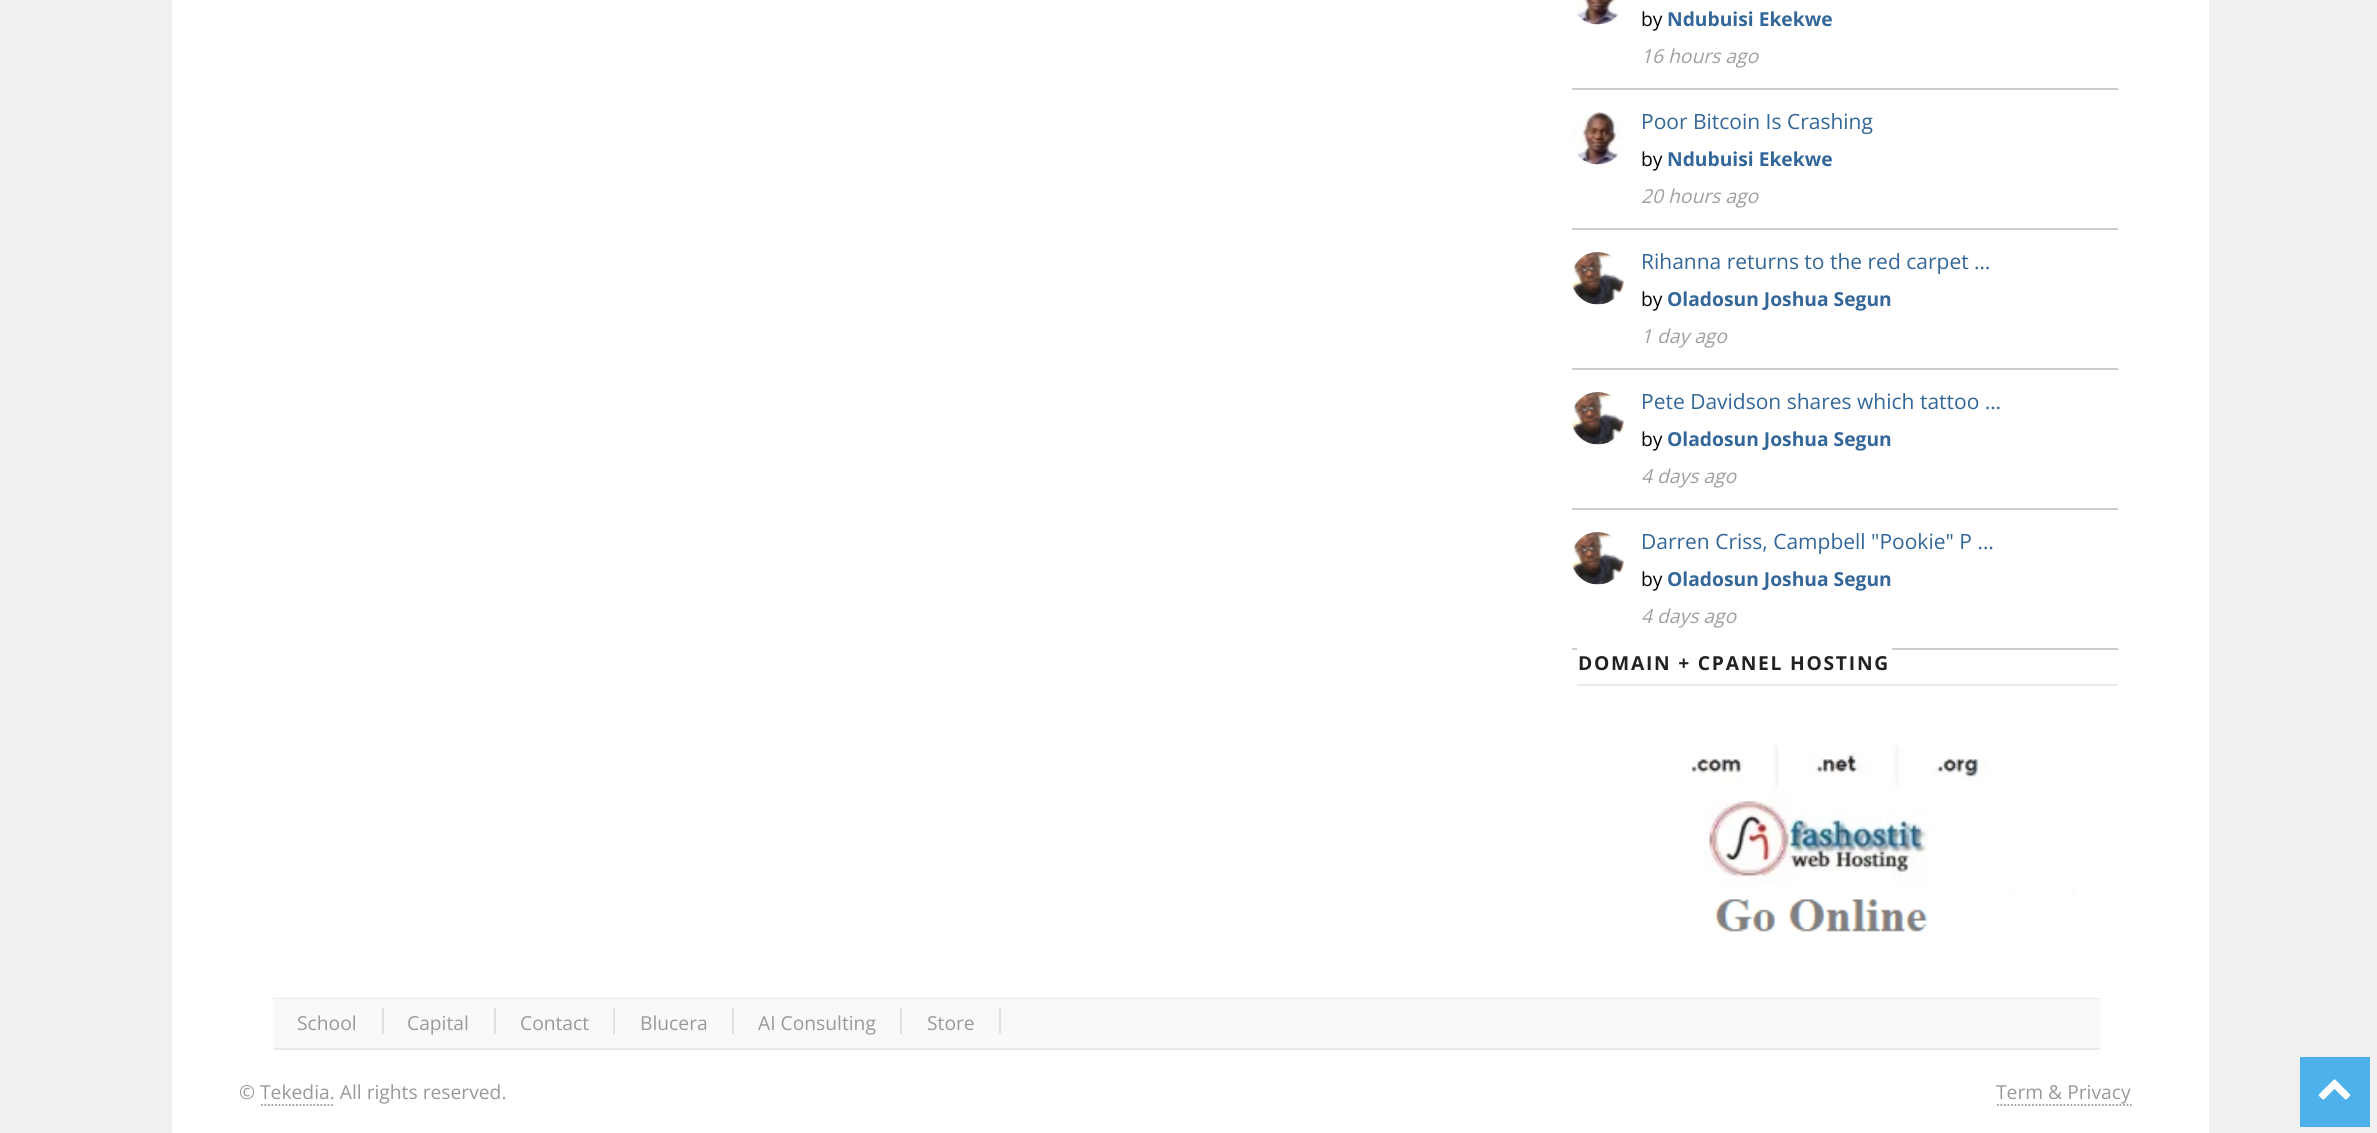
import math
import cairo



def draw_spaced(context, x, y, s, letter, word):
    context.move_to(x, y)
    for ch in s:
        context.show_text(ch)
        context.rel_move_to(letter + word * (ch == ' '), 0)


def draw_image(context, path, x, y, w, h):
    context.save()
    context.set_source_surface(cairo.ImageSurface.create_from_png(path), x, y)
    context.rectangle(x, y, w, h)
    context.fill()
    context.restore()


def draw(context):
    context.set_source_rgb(240 / 255, 240 / 255, 240 / 255)
    context.paint()
    context.set_source_rgb(1, 1, 1)
    context.rectangle(172, 0, 2037, 1133)
    context.fill()
    context.set_source_rgb(204 / 255, 204 / 255, 204 / 255)
    context.rectangle(1572, 88, 546, 2)
    context.fill()
    draw_image(context, "images/1.png", 1577, 0, 42, 25)
    context.rectangle(1572, 228, 546, 2)
    context.fill()
    draw_image(context, "images/2.png", 1572, 112, 51, 53)
    context.rectangle(1572, 368, 546, 2)
    context.fill()
    draw_image(context, "images/3.png", 1572, 252, 53, 53)
    context.rectangle(1572, 508, 546, 2)
    context.fill()
    draw_image(context, "images/3.png", 1572, 392, 53, 53)
    context.rectangle(1572, 648, 546, 2)
    context.fill()
    draw_image(context, "images/3.png", 1572, 532, 53, 53)
    context.set_source_rgb(233 / 255, 233 / 255, 233 / 255)
    context.rectangle(1577, 684, 541, 2)
    context.fill()
    context.set_source_rgb(1, 1, 1)
    context.rectangle(1577, 648, 315, 2)
    context.fill()
    draw_image(context, "images/4.png", 1687, 745, 389, 187)
    context.set_source_rgb(233 / 255, 233 / 255, 233 / 255)
    context.rectangle(273, 998, 1827, 1)
    context.fill()
    context.rectangle(273, 1048, 1827, 2)
    context.fill()
    context.set_source_rgb(249 / 255, 249 / 255, 249 / 255)
    context.rectangle(273, 999, 1827, 49)
    context.fill()
    context.set_source_rgb(224 / 255, 224 / 255, 224 / 255)
    context.rectangle(382, 1008, 2, 26)
    context.fill()
    context.rectangle(494, 1008, 2, 26)
    context.fill()
    context.rectangle(613, 1008, 2, 26)
    context.fill()
    context.rectangle(732, 1008, 2, 26)
    context.fill()
    context.rectangle(900, 1008, 2, 26)
    context.fill()
    context.rectangle(999, 1008, 2, 26)
    context.fill()
    context.new_path()
    context.move_to(261, 1105)
    context.line_to(334, 1105)
    context.set_source_rgb(153 / 255, 153 / 255, 153 / 255)
    context.set_line_width(1.8)
    context.set_dash([1.75, 1.75])
    context.stroke()
    context.new_path()
    context.move_to(1997, 1105)
    context.line_to(2131.5, 1105)
    context.stroke()
    context.set_source_rgb(77 / 255, 178 / 255, 236 / 255)
    context.rectangle(2300, 1057, 70, 70)
    context.fill()
    draw_image(context, "images/5.png", 2318, 1079, 33, 21)
    context.select_font_face("Open Sans")
    context.set_font_size(19.25)
    context.set_source_rgb(0, 0, 0)
    context.move_to(1641, 26)
    context.show_text("by")
    context.select_font_face("Open Sans", cairo.FontSlant.NORMAL, cairo.FontWeight.BOLD)
    context.set_source_rgb(51 / 255, 102 / 255, 153 / 255)
    context.move_to(1667, 26)
    context.show_text("Ndubuisi Ekekwe")
    context.select_font_face("Open Sans", cairo.FontSlant.ITALIC)
    context.set_source_rgb(159 / 255, 159 / 255, 159 / 255)
    context.move_to(1641, 63)
    context.show_text("16 hours ago")
    context.select_font_face("Open Sans")
    context.set_font_size(21)
    context.set_source_rgb(51 / 255, 102 / 255, 153 / 255)
    context.move_to(1641, 129)
    context.show_text("Poor Bitcoin Is Crashing")
    context.set_font_size(19.25)
    context.set_source_rgb(0, 0, 0)
    context.move_to(1641, 166)
    context.show_text("by")
    context.select_font_face("Open Sans", cairo.FontSlant.NORMAL, cairo.FontWeight.BOLD)
    context.set_source_rgb(51 / 255, 102 / 255, 153 / 255)
    context.move_to(1667, 166)
    context.show_text("Ndubuisi Ekekwe")
    context.select_font_face("Open Sans", cairo.FontSlant.ITALIC)
    context.set_source_rgb(159 / 255, 159 / 255, 159 / 255)
    context.move_to(1641, 203)
    context.show_text("20 hours ago")
    context.select_font_face("Open Sans")
    context.set_font_size(21)
    context.set_source_rgb(51 / 255, 102 / 255, 153 / 255)
    context.move_to(1641, 269)
    context.show_text("Rihanna returns to the red carpet …")
    context.set_font_size(19.25)
    context.set_source_rgb(0, 0, 0)
    context.move_to(1641, 306)
    context.show_text("by")
    context.select_font_face("Open Sans", cairo.FontSlant.NORMAL, cairo.FontWeight.BOLD)
    context.set_source_rgb(51 / 255, 102 / 255, 153 / 255)
    context.move_to(1667, 306)
    context.show_text("Oladosun Joshua Segun")
    context.select_font_face("Open Sans", cairo.FontSlant.ITALIC)
    context.set_source_rgb(159 / 255, 159 / 255, 159 / 255)
    context.move_to(1641, 343)
    context.show_text("1 day ago")
    context.select_font_face("Open Sans")
    context.set_font_size(21)
    context.set_source_rgb(51 / 255, 102 / 255, 153 / 255)
    context.move_to(1641, 409)
    context.show_text("Pete Davidson shares which tattoo …")
    context.set_font_size(19.25)
    context.set_source_rgb(0, 0, 0)
    context.move_to(1641, 446)
    context.show_text("by")
    context.select_font_face("Open Sans", cairo.FontSlant.NORMAL, cairo.FontWeight.BOLD)
    context.set_source_rgb(51 / 255, 102 / 255, 153 / 255)
    context.move_to(1667, 446)
    context.show_text("Oladosun Joshua Segun")
    context.select_font_face("Open Sans", cairo.FontSlant.ITALIC)
    context.set_source_rgb(159 / 255, 159 / 255, 159 / 255)
    context.move_to(1641, 483)
    context.show_text("4 days ago")
    context.select_font_face("Open Sans")
    context.set_font_size(21)
    context.set_source_rgb(51 / 255, 102 / 255, 153 / 255)
    context.move_to(1641, 549)
    context.show_text("Darren Criss, Campbell \"Pookie\" P …")
    context.set_font_size(19.25)
    context.set_source_rgb(0, 0, 0)
    context.move_to(1641, 586)
    context.show_text("by")
    context.select_font_face("Open Sans", cairo.FontSlant.NORMAL, cairo.FontWeight.BOLD)
    context.set_source_rgb(51 / 255, 102 / 255, 153 / 255)
    context.move_to(1667, 586)
    context.show_text("Oladosun Joshua Segun")
    context.select_font_face("Open Sans", cairo.FontSlant.ITALIC)
    context.set_source_rgb(159 / 255, 159 / 255, 159 / 255)
    context.move_to(1641, 623)
    context.show_text("4 days ago")
    context.select_font_face("Open Sans", cairo.FontSlant.NORMAL, cairo.FontWeight.BOLD)
    context.set_source_rgb(34 / 255, 34 / 255, 34 / 255)
    draw_spaced(context, 1578, 670, "DOMAIN + CPANEL HOSTING", 1.75, 0)
    context.select_font_face("Open Sans")
    context.set_source_rgb(153 / 255, 153 / 255, 153 / 255)
    context.move_to(297, 1030)
    context.show_text("School")
    context.move_to(407, 1030)
    context.show_text("Capital")
    context.move_to(520, 1030)
    context.show_text("Contact")
    context.move_to(640, 1030)
    context.show_text("Blucera")
    context.move_to(758, 1030)
    context.show_text("AI Consulting")
    context.move_to(927, 1030)
    context.show_text("Store")
    context.move_to(239, 1099)
    context.show_text("© Tekedia. All rights reserved.")
    context.move_to(1996, 1099)
    context.show_text("Term & Privacy")


surface = cairo.ImageSurface(cairo.Format.RGB24, 2377, 1133)
context = cairo.Context(surface)
options = cairo.FontOptions()
options.set_hint_metrics(cairo.HintMetrics.OFF)
options.set_hint_style(cairo.HintStyle.NONE)
context.set_font_options(options)
context.set_miter_limit(4)
draw(context)
surface.write_to_png("out.png")
